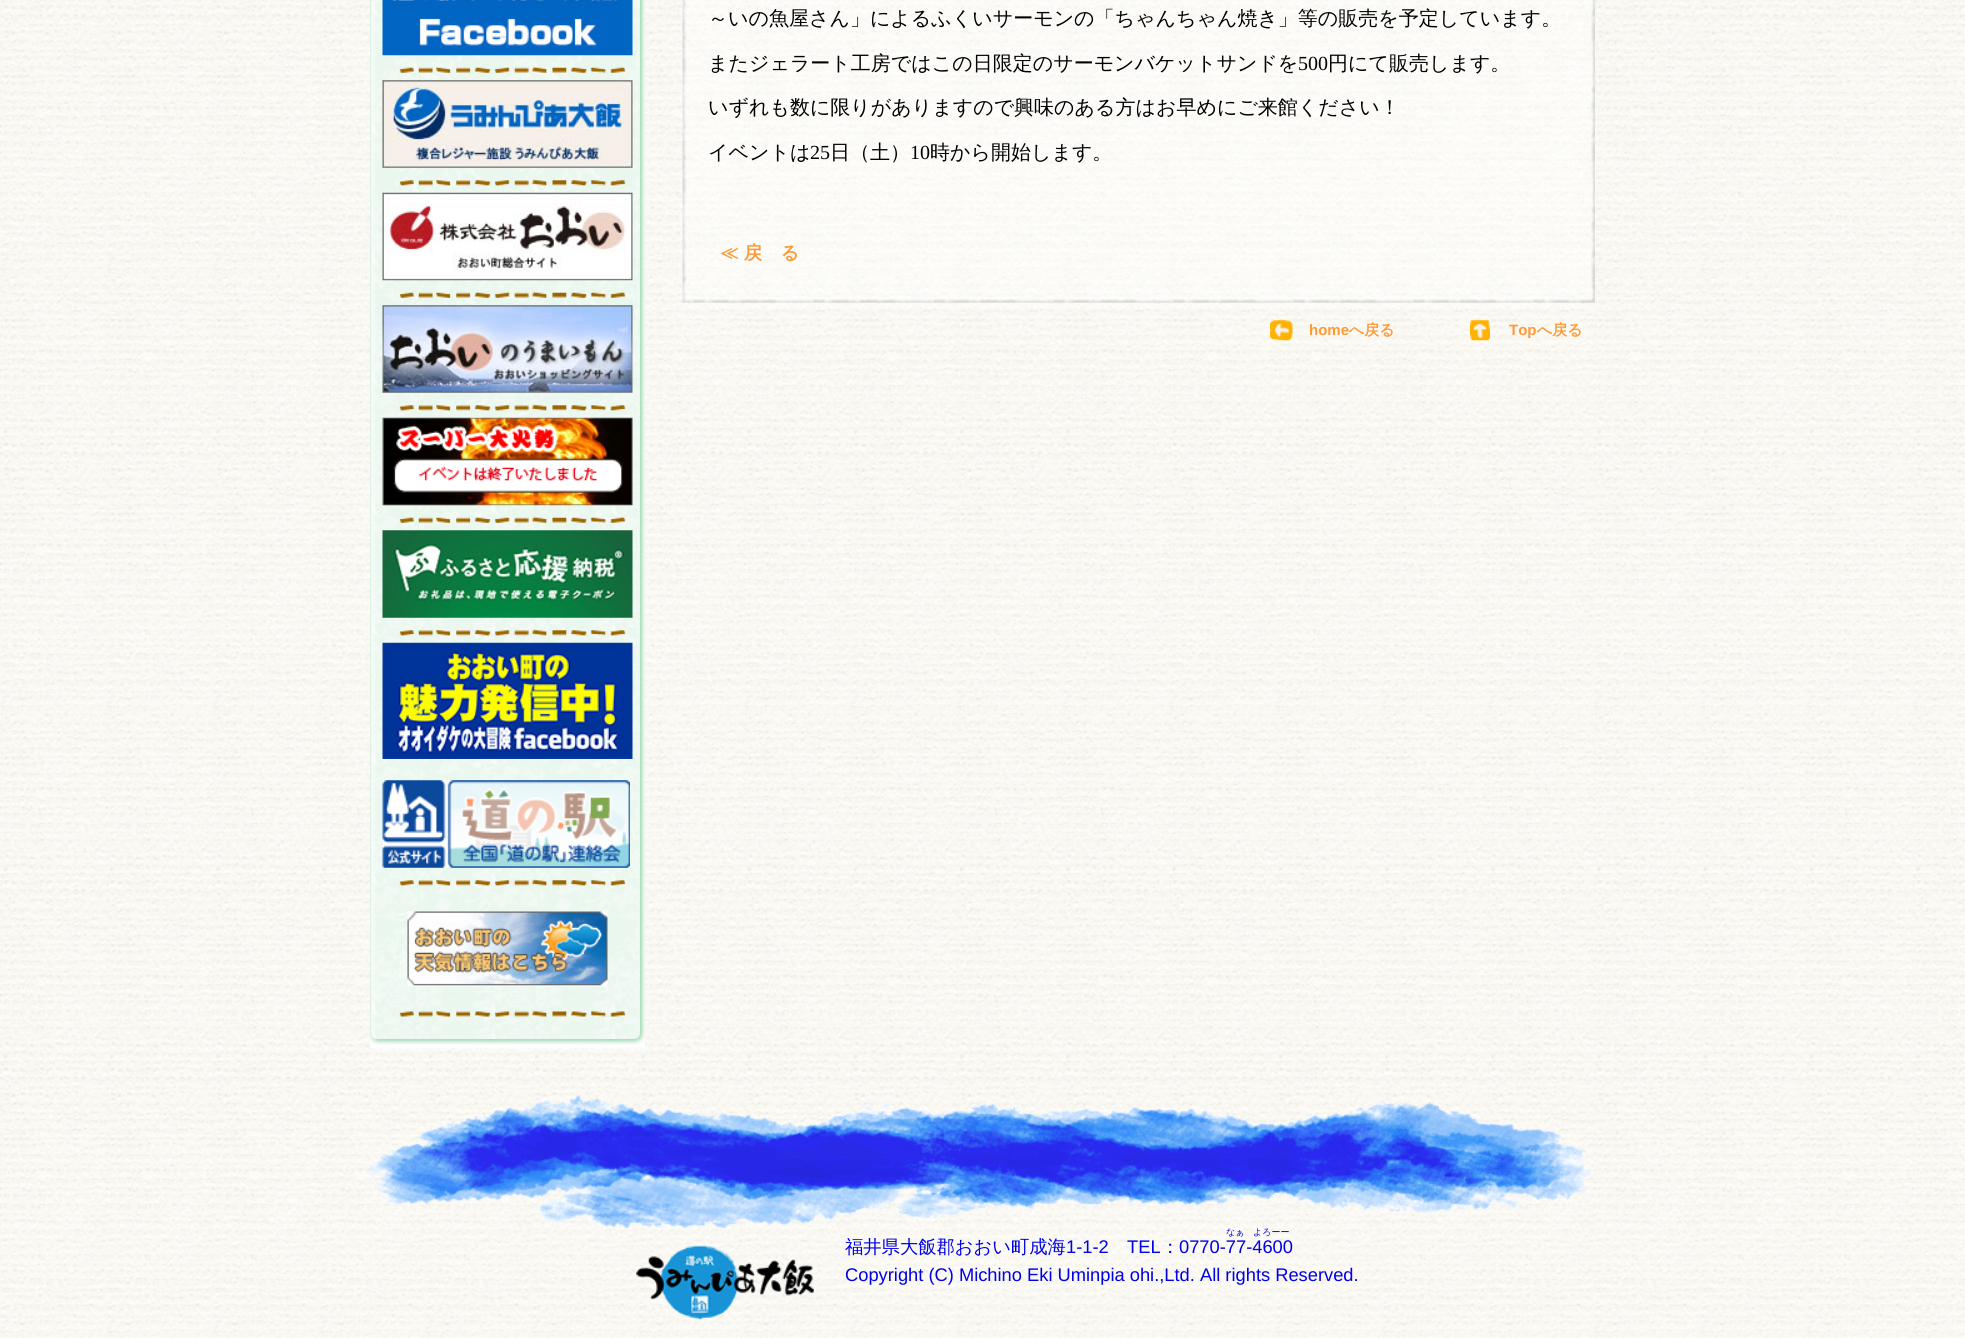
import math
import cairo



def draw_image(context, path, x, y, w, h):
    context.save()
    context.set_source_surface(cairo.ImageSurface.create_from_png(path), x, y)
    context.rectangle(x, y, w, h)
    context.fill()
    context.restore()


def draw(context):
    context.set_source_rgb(1, 1, 1)
    context.paint()
    draw_image(context, "images/1.png", 0, 0, 1965, 1338)
    draw_image(context, "images/2.png", 370, 0, 275, 1024)
    draw_image(context, "images/3.png", 399, 66, 227, 8)
    draw_image(context, "images/4.png", 382, 0, 251, 56)
    draw_image(context, "images/5.png", 399, 179, 227, 8)
    draw_image(context, "images/6.png", 382, 80, 251, 88)
    draw_image(context, "images/7.png", 399, 291, 227, 8)
    draw_image(context, "images/8.png", 382, 192, 251, 89)
    draw_image(context, "images/9.png", 399, 404, 227, 8)
    draw_image(context, "images/10.png", 382, 305, 251, 88)
    draw_image(context, "images/11.png", 399, 516, 227, 8)
    draw_image(context, "images/12.png", 382, 417, 251, 89)
    draw_image(context, "images/13.png", 399, 629, 227, 8)
    draw_image(context, "images/14.png", 382, 530, 251, 88)
    draw_image(context, "images/15.png", 382, 642, 251, 117)
    draw_image(context, "images/13.png", 399, 879, 227, 8)
    draw_image(context, "images/16.png", 382, 780, 248, 88)
    draw_image(context, "images/17.png", 399, 1010, 227, 8)
    draw_image(context, "images/18.png", 407, 911, 201, 76)
    draw_image(context, "images/19.png", 370, 1024, 275, 24)
    context.set_source_rgba(1, 1, 1, 0.4)
    context.rectangle(686, 0, 906, 284)
    context.fill()
    draw_image(context, "images/20.png", 682, 0, 913, 284)
    context.rectangle(683, 284, 912, 24)
    context.fill()
    draw_image(context, "images/21.png", 682, 284, 913, 19)
    draw_image(context, "images/22.png", 1270, 320, 23, 21)
    draw_image(context, "images/23.png", 1470, 320, 20, 21)
    draw_image(context, "images/24.png", 370, 1095, 1222, 225)
    draw_image(context, "images/25.png", 776, 1099, 232, 60)
    draw_image(context, "images/26.png", 1095, 1107, 232, 52)
    context.select_font_face("WenQuanYi Zen Hei Medium")
    context.set_font_size(20)
    context.set_source_rgb(0, 0, 0)
    context.move_to(708, 25)
    context.show_text("～いの魚屋さん」によるふくいサーモンの「ちゃんちゃん焼き」等の販売を予定しています。")
    context.move_to(708, 70)
    context.show_text("またジェラート工房ではこの日限定のサーモンバケットサンドを")
    context.select_font_face("Liberation Serif")
    context.move_to(1298, 70)
    context.show_text("500")
    context.select_font_face("WenQuanYi Zen Hei Medium")
    context.move_to(1328, 70)
    context.show_text("円にて販売します。")
    context.move_to(708, 114)
    context.show_text("いずれも数に限りがありますので興味のある方はお早めにご来館ください！")
    context.move_to(708, 159)
    context.show_text("イベントは")
    context.select_font_face("Liberation Serif")
    context.move_to(810, 159)
    context.show_text("25")
    context.select_font_face("WenQuanYi Zen Hei Medium")
    context.move_to(830, 159)
    context.show_text("日（土）")
    context.select_font_face("Liberation Serif")
    context.move_to(910, 159)
    context.show_text("10")
    context.select_font_face("WenQuanYi Zen Hei Medium")
    context.move_to(930, 159)
    context.show_text("時から開始します。")
    context.select_font_face("WenQuanYi Zen Hei", cairo.FontSlant.NORMAL, cairo.FontWeight.BOLD)
    context.set_font_size(18.3)
    context.set_source_rgb(1, 153 / 255, 51 / 255)
    context.move_to(720, 259)
    context.show_text("≪ 戻　る")
    context.select_font_face("Liberation Sans", cairo.FontSlant.NORMAL, cairo.FontWeight.BOLD)
    context.set_font_size(15)
    context.move_to(1309, 335)
    context.show_text("home")
    context.select_font_face("WenQuanYi Zen Hei", cairo.FontSlant.NORMAL, cairo.FontWeight.BOLD)
    context.move_to(1349, 335)
    context.show_text("へ戻る")
    context.select_font_face("Liberation Sans", cairo.FontSlant.NORMAL, cairo.FontWeight.BOLD)
    context.move_to(1509, 335)
    context.show_text("Top")
    context.select_font_face("WenQuanYi Zen Hei", cairo.FontSlant.NORMAL, cairo.FontWeight.BOLD)
    context.move_to(1537, 335)
    context.show_text("へ戻る")
    context.select_font_face("WenQuanYi Zen Hei Medium")
    context.set_font_size(9)
    context.set_source_rgb(0, 0, 230 / 255)
    context.move_to(1226, 1235)
    context.show_text("なぁ")
    context.move_to(1253, 1235)
    context.show_text("よろーー")
    context.set_font_size(18.3)
    context.move_to(845, 1253)
    context.show_text("福井県大飯郡おおい町成海")
    context.select_font_face("Liberation Sans")
    context.move_to(1066, 1253)
    context.show_text("1-1-2")
    context.move_to(1127, 1253)
    context.show_text("TEL")
    context.select_font_face("WenQuanYi Zen Hei Medium")
    context.move_to(1161, 1253)
    context.show_text("：")
    context.select_font_face("Liberation Sans")
    context.move_to(1179, 1253)
    context.show_text("0770-77-4600")
    context.move_to(845, 1281)
    context.show_text("Copyright (C) Michino Eki Uminpia ohi.,Ltd. All rights Reserved.")


surface = cairo.ImageSurface(cairo.Format.RGB24, 1965, 1338)
context = cairo.Context(surface)
options = cairo.FontOptions()
options.set_hint_metrics(cairo.HintMetrics.OFF)
options.set_hint_style(cairo.HintStyle.NONE)
context.set_font_options(options)
context.set_miter_limit(4)
draw(context)
surface.write_to_png("out.png")
